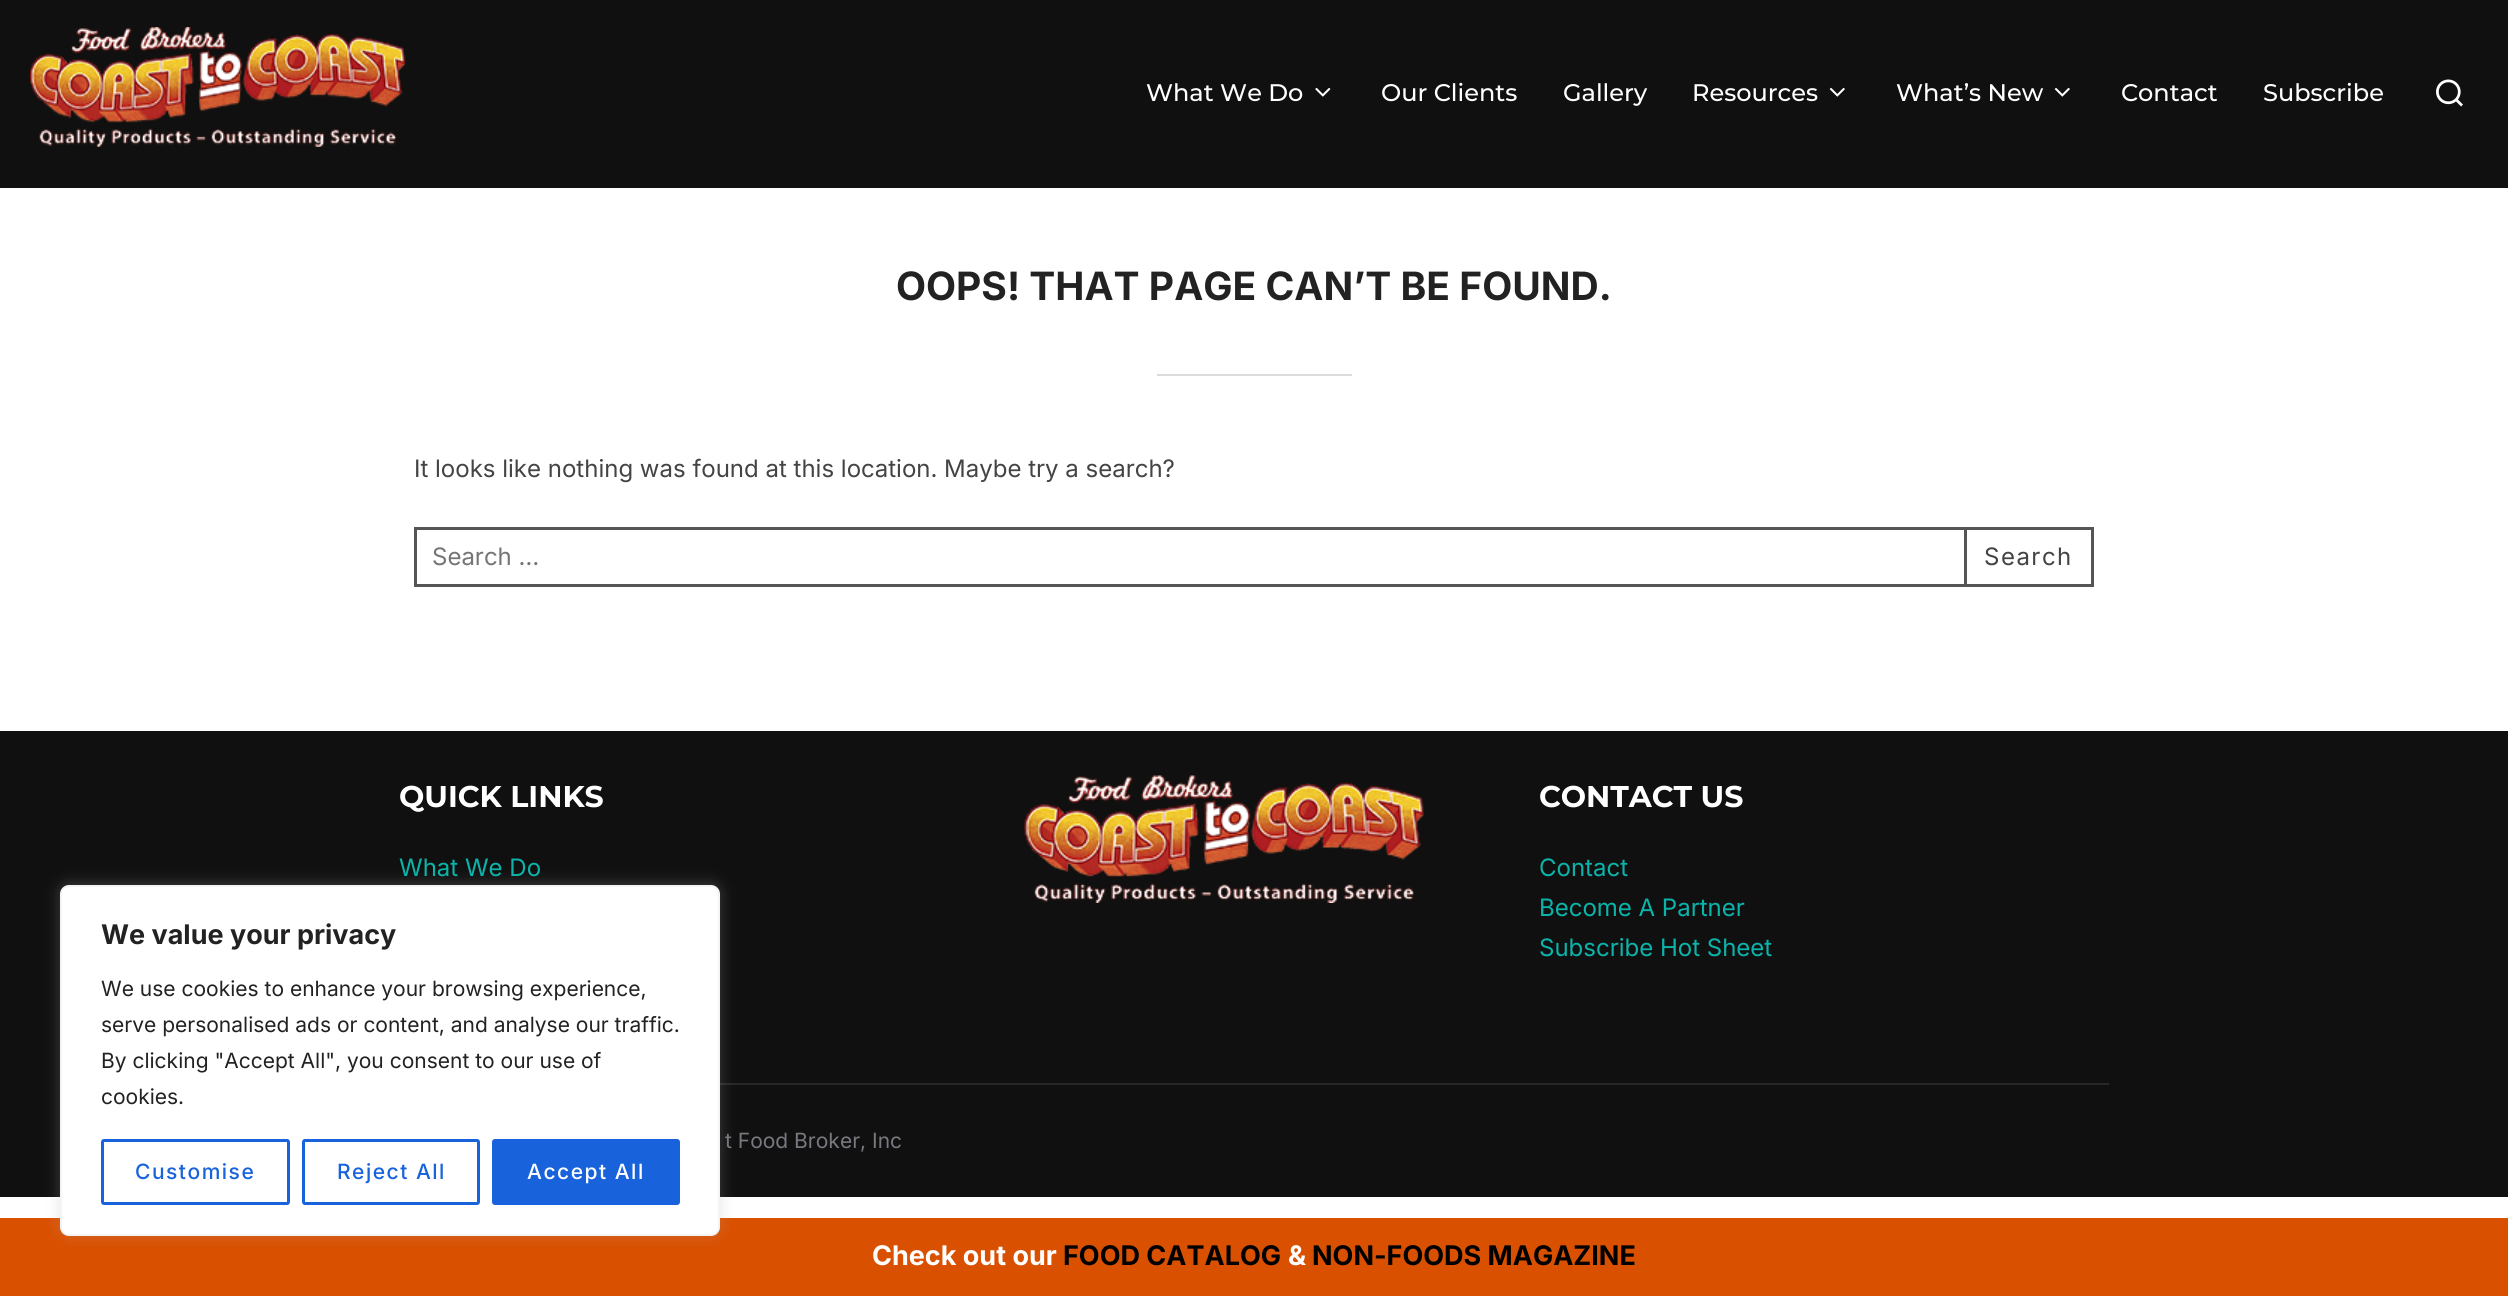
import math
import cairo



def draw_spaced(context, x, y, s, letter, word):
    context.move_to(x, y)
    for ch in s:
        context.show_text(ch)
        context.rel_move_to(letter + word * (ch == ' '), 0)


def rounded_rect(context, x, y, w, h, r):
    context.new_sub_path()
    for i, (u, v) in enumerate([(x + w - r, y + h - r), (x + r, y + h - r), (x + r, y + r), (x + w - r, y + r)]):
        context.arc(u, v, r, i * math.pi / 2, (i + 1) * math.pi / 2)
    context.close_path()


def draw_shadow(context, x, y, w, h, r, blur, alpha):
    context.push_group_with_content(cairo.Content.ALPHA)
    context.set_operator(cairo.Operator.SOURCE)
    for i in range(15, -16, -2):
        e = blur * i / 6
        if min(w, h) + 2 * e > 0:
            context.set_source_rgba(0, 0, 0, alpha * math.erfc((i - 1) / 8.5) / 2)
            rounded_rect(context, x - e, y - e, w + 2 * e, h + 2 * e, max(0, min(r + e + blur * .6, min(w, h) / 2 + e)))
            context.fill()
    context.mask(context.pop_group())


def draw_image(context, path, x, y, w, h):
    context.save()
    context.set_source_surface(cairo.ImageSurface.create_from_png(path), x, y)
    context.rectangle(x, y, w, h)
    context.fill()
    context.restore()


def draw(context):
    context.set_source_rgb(1, 1, 1)
    context.paint()
    context.set_source_rgb(16 / 255, 16 / 255, 16 / 255)
    context.rectangle(0, 731, 2508, 466)
    context.fill()
    context.set_source_rgb(40 / 255, 40 / 255, 40 / 255)
    context.rectangle(720, 1083, 1389, 2)
    context.fill()
    context.set_source_rgb(217 / 255, 80 / 255, 0)
    context.rectangle(0, 1218, 2508, 78)
    context.fill()
    context.set_source_rgb(172 / 255, 171 / 255, 171 / 255)
    draw_shadow(context, 60, 884, 660, 351, 9, 7.5, 0.3)
    context.set_source_rgb(1, 1, 1)
    rounded_rect(context, 61, 886, 658, 349, 8)
    context.fill_preserve()
    context.set_source_rgb(244 / 255, 244 / 255, 244 / 255)
    context.stroke()
    rounded_rect(context, 102.5, 1140.5, 186, 63, 1.5)
    context.set_source_rgb(24 / 255, 99 / 255, 220 / 255)
    context.set_line_width(3)
    context.stroke()
    rounded_rect(context, 303.5, 1140.5, 175, 63, 1.5)
    context.stroke()
    rounded_rect(context, 493.5, 1140.5, 185, 63, 1.5)
    context.fill_preserve()
    context.stroke()
    context.set_source_rgb(16 / 255, 16 / 255, 16 / 255)
    context.rectangle(0, 0, 2508, 188)
    context.fill()
    draw_image(context, "images/1.png", 30, 27, 376, 120)
    draw_image(context, "images/2.png", 1315, 87, 16, 10)
    draw_image(context, "images/3.png", 1829, 87, 16, 10)
    draw_image(context, "images/3.png", 2054, 87, 16, 10)
    draw_image(context, "images/4.png", 2436, 79, 27, 28)
    context.set_source_rgb(219 / 255, 219 / 255, 219 / 255)
    context.rectangle(1157, 374, 195, 2)
    context.fill()
    context.rectangle(415.5, 528.5, 1677, 57)
    context.set_source_rgb(86 / 255, 85 / 255, 85 / 255)
    context.stroke()
    context.rectangle(1965.5, 528.5, 127, 57)
    context.stroke()
    draw_image(context, "images/5.png", 1024, 775, 400, 128)
    context.select_font_face("Inter", cairo.FontSlant.NORMAL, cairo.FontWeight.BOLD)
    context.set_font_size(27)
    context.set_source_rgb(34 / 255, 34 / 255, 34 / 255)
    context.move_to(101, 944)
    context.show_text("We value your privacy")
    context.select_font_face("Inter")
    context.set_font_size(21)
    context.move_to(101, 996)
    context.show_text("We use cookies to enhance your browsing experience,")
    context.move_to(101, 1032)
    context.show_text("serve personalised ads or content, and analyse our traffic.")
    context.move_to(101, 1068)
    context.show_text("By clicking \"Accept All\", you consent to our use of")
    context.move_to(101, 1104)
    context.show_text("cookies.")
    context.select_font_face("Inter Medium")
    context.set_source_rgb(24 / 255, 99 / 255, 220 / 255)
    draw_spaced(context, 135, 1179, "Customise", 1.5, 0)
    draw_spaced(context, 337, 1179, "Reject All", 1.5, 0)
    context.set_source_rgb(1, 1, 1)
    draw_spaced(context, 527, 1179, "Accept All", 1.5, 0)
    context.select_font_face("Montserrat Medium")
    context.set_font_size(24)
    context.move_to(1146, 101)
    context.show_text("What We Do")
    context.move_to(1381, 101)
    context.show_text("Our Clients")
    context.move_to(1563, 101)
    context.show_text("Gallery")
    context.move_to(1692, 101)
    context.show_text("Resources")
    context.move_to(1896, 101)
    context.show_text("What’s New")
    context.move_to(2121, 101)
    context.show_text("Contact")
    context.move_to(2263, 101)
    context.show_text("Subscribe")
    context.select_font_face("Inter", cairo.FontSlant.NORMAL, cairo.FontWeight.BOLD)
    context.set_font_size(39)
    context.set_source_rgb(34 / 255, 34 / 255, 34 / 255)
    context.move_to(896, 300)
    context.show_text("OOPS! THAT PAGE CAN’T BE FOUND.")
    context.select_font_face("Inter")
    context.set_font_size(24)
    context.set_source_rgb(68 / 255, 68 / 255, 68 / 255)
    context.move_to(414, 477)
    context.show_text("It looks like nothing was found at this location. Maybe try a search?")
    context.set_source_rgb(117 / 255, 117 / 255, 117 / 255)
    context.move_to(432, 565)
    context.show_text("Search …")
    context.set_source_rgb(68 / 255, 68 / 255, 68 / 255)
    draw_spaced(context, 1984, 565, "Search", 1.5, 0)
    context.select_font_face("Montserrat", cairo.FontSlant.NORMAL, cairo.FontWeight.BOLD)
    context.set_font_size(30)
    context.set_source_rgb(1, 1, 1)
    context.move_to(399, 807)
    context.show_text("QUICK LINKS")
    context.select_font_face("Inter")
    context.set_font_size(24)
    context.set_source_rgb(11 / 255, 180 / 255, 170 / 255)
    context.move_to(399, 876)
    context.show_text("What We Do")
    context.select_font_face("Montserrat", cairo.FontSlant.NORMAL, cairo.FontWeight.BOLD)
    context.set_font_size(30)
    context.set_source_rgb(1, 1, 1)
    context.move_to(1539, 807)
    context.show_text("CONTACT US")
    context.select_font_face("Inter")
    context.set_font_size(24)
    context.set_source_rgb(11 / 255, 180 / 255, 170 / 255)
    context.move_to(1539, 876)
    context.show_text("Contact")
    context.move_to(1539, 916)
    context.show_text("Become A Partner")
    context.move_to(1539, 956)
    context.show_text("Subscribe Hot Sheet")
    context.set_font_size(21)
    context.set_source_rgb(120 / 255, 120 / 255, 127 / 255)
    context.move_to(725, 1148)
    context.show_text("t Food Broker, Inc")
    context.select_font_face("Inter", cairo.FontSlant.NORMAL, cairo.FontWeight.BOLD)
    context.set_font_size(27)
    context.set_source_rgb(1, 1, 1)
    context.move_to(872, 1265)
    context.show_text("Check out our")
    context.set_source_rgb(0, 0, 0)
    context.move_to(1063, 1265)
    context.show_text("FOOD CATALOG")
    context.set_source_rgb(1, 1, 1)
    context.move_to(1288, 1265)
    context.show_text("&")
    context.set_source_rgb(0, 0, 0)
    context.move_to(1312, 1265)
    context.show_text("NON-FOODS MAGAZINE")


surface = cairo.ImageSurface(cairo.Format.RGB24, 2508, 1296)
context = cairo.Context(surface)
options = cairo.FontOptions()
options.set_hint_metrics(cairo.HintMetrics.OFF)
options.set_hint_style(cairo.HintStyle.NONE)
context.set_font_options(options)
context.set_miter_limit(4)
draw(context)
surface.write_to_png("out.png")
